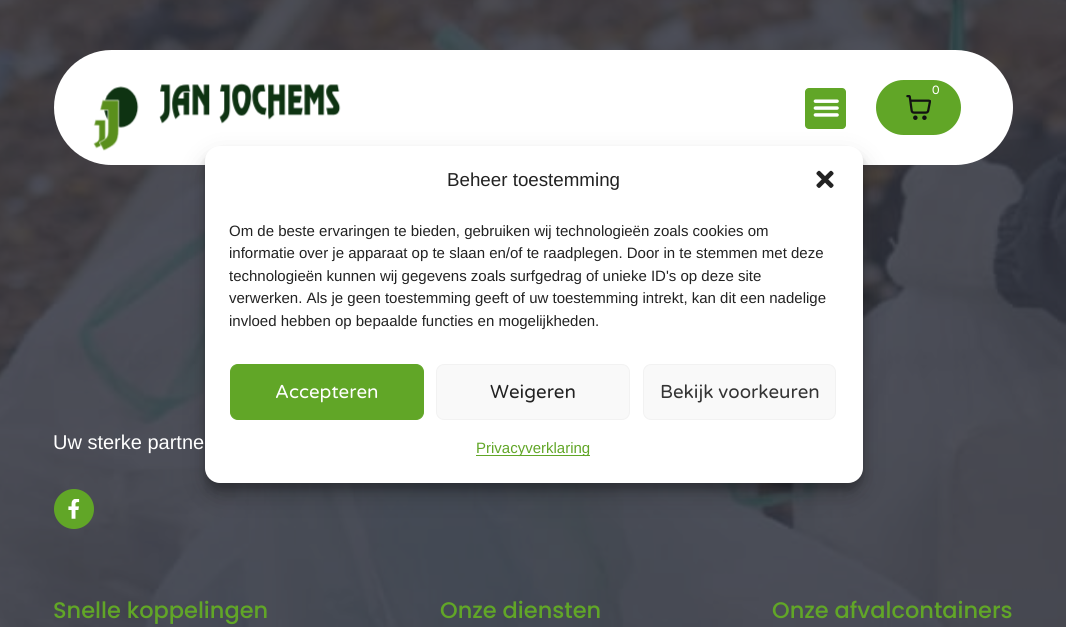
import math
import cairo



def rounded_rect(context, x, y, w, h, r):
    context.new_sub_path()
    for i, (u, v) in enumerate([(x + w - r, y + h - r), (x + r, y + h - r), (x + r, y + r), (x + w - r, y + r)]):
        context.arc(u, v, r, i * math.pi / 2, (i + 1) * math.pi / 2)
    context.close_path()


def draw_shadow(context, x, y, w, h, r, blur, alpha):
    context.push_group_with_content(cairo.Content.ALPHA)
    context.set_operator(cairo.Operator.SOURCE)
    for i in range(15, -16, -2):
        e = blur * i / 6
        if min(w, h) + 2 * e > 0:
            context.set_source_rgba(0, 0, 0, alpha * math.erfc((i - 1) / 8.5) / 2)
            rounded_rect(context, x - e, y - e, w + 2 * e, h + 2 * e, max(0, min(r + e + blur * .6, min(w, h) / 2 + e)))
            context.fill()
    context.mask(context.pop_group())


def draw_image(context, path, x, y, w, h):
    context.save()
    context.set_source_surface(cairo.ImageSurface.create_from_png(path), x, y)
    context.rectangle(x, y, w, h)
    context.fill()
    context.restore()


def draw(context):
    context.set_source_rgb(1, 1, 1)
    context.paint()
    draw_image(context, "images/5.png", 0, 0, 1066, 627)
    context.set_source_rgb(1, 1, 1)
    rounded_rect(context, 54, 50, 959, 115, 57.5)
    context.fill()
    draw_image(context, "images/1.png", 93, 83, 248, 68)
    context.set_source_rgb(97 / 255, 166 / 255, 39 / 255)
    rounded_rect(context, 805, 88, 41, 41, 4)
    context.fill()
    draw_image(context, "images/2.png", 813, 99, 26, 18)
    rounded_rect(context, 876, 80, 85, 55, 27.5)
    context.fill()
    draw_image(context, "images/3.png", 906, 95, 25, 25)
    context.arc(935, 91, 10, 0, 2 * math.pi)
    context.fill()
    context.set_source_rgb(0, 0, 0)
    draw_shadow(context, 205, 154, 658, 336, 15, 4, 0.23)
    draw_shadow(context, 205, 159, 658, 336, 15, 12.5, 0.19)
    context.set_source_rgb(1, 1, 1)
    rounded_rect(context, 205, 146, 658, 337, 15)
    context.fill()
    draw_image(context, "images/4.png", 816, 170, 18, 18)
    context.set_source_rgb(97 / 255, 166 / 255, 39 / 255)
    rounded_rect(context, 230.5, 364.5, 193, 55, 7.5)
    context.fill_preserve()
    context.set_line_width(1)
    context.stroke()
    context.set_source_rgb(249 / 255, 249 / 255, 249 / 255)
    rounded_rect(context, 436.5, 364.5, 193, 55, 7.5)
    context.fill_preserve()
    context.set_source_rgb(242 / 255, 242 / 255, 242 / 255)
    context.stroke()
    context.set_source_rgb(249 / 255, 249 / 255, 249 / 255)
    rounded_rect(context, 643.5, 364.5, 192, 55, 7.5)
    context.fill_preserve()
    context.set_source_rgb(242 / 255, 242 / 255, 242 / 255)
    context.stroke()
    context.set_source_rgb(97 / 255, 166 / 255, 39 / 255)
    context.rectangle(476, 455, 114, 1)
    context.fill()
    context.arc(74, 509, 20, 0, 2 * math.pi)
    context.fill()
    draw_image(context, "images/6.png", 68, 499, 12, 20)
    context.select_font_face("Varela Round")
    context.set_font_size(12)
    context.set_source_rgb(1, 1, 1)
    context.move_to(932, 94)
    context.show_text("0")
    context.select_font_face("Liberation Sans")
    context.set_font_size(18.75)
    context.set_source_rgb(34 / 255, 34 / 255, 34 / 255)
    context.move_to(447, 186)
    context.show_text("Beheer toestemming")
    context.set_font_size(15)
    context.move_to(229, 236)
    context.show_text("Om de beste ervaringen te bieden, gebruiken wij technologieën zoals cookies om")
    context.move_to(229, 258)
    context.show_text("informatie over je apparaat op te slaan en/of te raadplegen. Door in te stemmen met deze")
    context.move_to(229, 281)
    context.show_text("technologieën kunnen wij gegevens zoals surfgedrag of unieke ID's op deze site")
    context.move_to(229, 303)
    context.show_text("verwerken. Als je geen toestemming geeft of uw toestemming intrekt, kan dit een nadelige")
    context.move_to(229, 326)
    context.show_text("invloed hebben op bepaalde functies en mogelijkheden.")
    context.select_font_face("Varela Round")
    context.set_font_size(18.75)
    context.set_source_rgb(1, 1, 1)
    context.move_to(275, 398)
    context.show_text("Accepteren")
    context.set_source_rgb(34 / 255, 34 / 255, 34 / 255)
    context.move_to(490, 398)
    context.show_text("Weigeren")
    context.set_source_rgb(51 / 255, 51 / 255, 51 / 255)
    context.move_to(660, 398)
    context.show_text("Bekijk voorkeuren")
    context.select_font_face("Liberation Sans")
    context.set_font_size(15)
    context.set_source_rgb(97 / 255, 166 / 255, 39 / 255)
    context.move_to(476, 453)
    context.show_text("Privacyverklaring")
    context.set_font_size(20)
    context.set_source_rgb(1, 1, 1)
    context.move_to(53, 449)
    context.show_text("Uw sterke partne")
    context.select_font_face("Poppins Medium")
    context.set_font_size(22.5)
    context.set_source_rgb(97 / 255, 166 / 255, 39 / 255)
    context.move_to(53, 618)
    context.show_text("Snelle koppelingen")
    context.move_to(440, 618)
    context.show_text("Onze diensten")
    context.move_to(772, 618)
    context.show_text("Onze afvalcontainers")


surface = cairo.ImageSurface(cairo.Format.RGB24, 1066, 627)
context = cairo.Context(surface)
options = cairo.FontOptions()
options.set_hint_metrics(cairo.HintMetrics.OFF)
options.set_hint_style(cairo.HintStyle.NONE)
context.set_font_options(options)
context.set_miter_limit(4)
draw(context)
surface.write_to_png("out.png")
